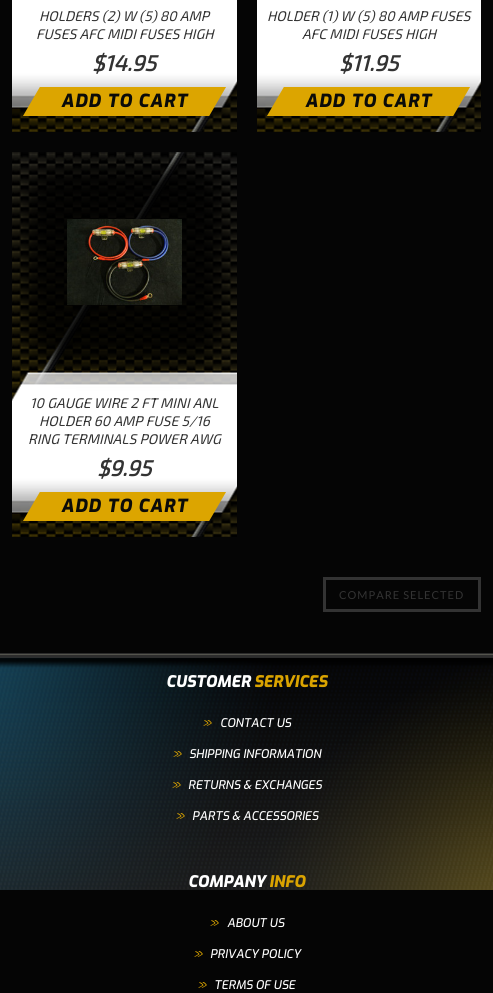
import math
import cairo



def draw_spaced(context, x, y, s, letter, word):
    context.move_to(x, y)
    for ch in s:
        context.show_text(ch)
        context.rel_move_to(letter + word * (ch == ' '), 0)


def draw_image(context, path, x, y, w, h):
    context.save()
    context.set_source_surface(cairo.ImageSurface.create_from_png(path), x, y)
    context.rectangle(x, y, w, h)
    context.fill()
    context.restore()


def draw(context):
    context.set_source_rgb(5 / 255, 5 / 255, 5 / 255)
    context.paint()
    draw_image(context, "images/1.png", 12, 0, 225, 132)
    draw_image(context, "images/2.png", 23, 87, 203, 29)
    draw_image(context, "images/3.png", 257, 0, 224, 132)
    draw_image(context, "images/4.png", 267, 87, 203, 29)
    draw_image(context, "images/5.png", 12, 152, 225, 385)
    draw_image(context, "images/6.png", 67, 219, 115, 86)
    draw_image(context, "images/2.png", 23, 492, 203, 29)
    context.rectangle(324.5, 578.5, 155, 32)
    context.set_source_rgb(51 / 255, 51 / 255, 51 / 255)
    context.set_line_width(3)
    context.stroke()
    draw_image(context, "images/7.png", 0, 653, 493, 237)
    context.select_font_face("Exo 2", cairo.FontSlant.ITALIC)
    context.set_font_size(14)
    context.move_to(39, 21)
    context.show_text("HOLDERS (2) W (5) 80 AMP")
    context.move_to(36, 39)
    context.show_text("FUSES AFC MIDI FUSES HIGH")
    context.select_font_face("Exo 2", cairo.FontSlant.ITALIC, cairo.FontWeight.BOLD)
    context.set_font_size(22)
    context.move_to(92, 71)
    context.show_text("$14.95")
    context.select_font_face("Exo ExtraBold", cairo.FontSlant.ITALIC)
    context.set_font_size(18)
    context.set_source_rgb(11 / 255, 11 / 255, 9 / 255)
    draw_spaced(context, 61, 107, "ADD TO CART", 1, 0)
    context.select_font_face("Exo 2", cairo.FontSlant.ITALIC)
    context.set_font_size(14)
    context.set_source_rgb(51 / 255, 51 / 255, 51 / 255)
    context.move_to(267, 21)
    context.show_text("HOLDER (1) W (5) 80 AMP FUSES")
    context.move_to(302, 39)
    context.show_text("AFC MIDI FUSES HIGH")
    context.select_font_face("Exo 2", cairo.FontSlant.ITALIC, cairo.FontWeight.BOLD)
    context.set_font_size(22)
    context.move_to(339, 71)
    context.show_text("$11.95")
    context.select_font_face("Exo ExtraBold", cairo.FontSlant.ITALIC)
    context.set_font_size(18)
    context.set_source_rgb(11 / 255, 11 / 255, 9 / 255)
    draw_spaced(context, 305, 107, "ADD TO CART", 1, 0)
    context.select_font_face("Exo 2", cairo.FontSlant.ITALIC)
    context.set_font_size(14)
    context.set_source_rgb(51 / 255, 51 / 255, 51 / 255)
    context.move_to(30, 408)
    context.show_text("10 GAUGE WIRE 2 FT MINI ANL")
    context.move_to(39, 426)
    context.show_text("HOLDER 60 AMP FUSE 5/16")
    context.move_to(28, 444)
    context.show_text("RING TERMINALS POWER AWG")
    context.select_font_face("Exo 2", cairo.FontSlant.ITALIC, cairo.FontWeight.BOLD)
    context.set_font_size(22)
    context.move_to(97, 476)
    context.show_text("$9.95")
    context.select_font_face("Exo ExtraBold", cairo.FontSlant.ITALIC)
    context.set_font_size(18)
    context.set_source_rgb(11 / 255, 11 / 255, 9 / 255)
    draw_spaced(context, 61, 512, "ADD TO CART", 1, 0)
    context.select_font_face("Lato")
    context.set_font_size(11)
    context.set_source_rgb(51 / 255, 51 / 255, 51 / 255)
    draw_spaced(context, 339, 599, "COMPARE SELECTED", 1, 0)
    context.select_font_face("Exo ExtraBold", cairo.FontSlant.ITALIC)
    context.set_font_size(16)
    context.set_source_rgb(1, 1, 1)
    context.move_to(166, 687)
    context.show_text("CUSTOMER")
    context.set_source_rgb(219 / 255, 164 / 255, 0)
    context.move_to(254, 687)
    context.show_text("SERVICES")
    context.select_font_face("Handlee", cairo.FontSlant.ITALIC)
    context.set_font_size(14)
    context.move_to(202, 727)
    context.show_text("»")
    context.select_font_face("Exo Medium", cairo.FontSlant.ITALIC)
    context.set_font_size(12)
    context.set_source_rgb(1, 1, 1)
    context.move_to(220, 727)
    context.show_text("CONTACT US")
    context.select_font_face("Handlee", cairo.FontSlant.ITALIC)
    context.set_font_size(14)
    context.set_source_rgb(219 / 255, 164 / 255, 0)
    context.move_to(172, 758)
    context.show_text("»")
    context.select_font_face("Exo Medium", cairo.FontSlant.ITALIC)
    context.set_font_size(12)
    context.set_source_rgb(1, 1, 1)
    context.move_to(189, 758)
    context.show_text("SHIPPING INFORMATION")
    context.select_font_face("Handlee", cairo.FontSlant.ITALIC)
    context.set_font_size(14)
    context.set_source_rgb(219 / 255, 164 / 255, 0)
    context.move_to(171, 789)
    context.show_text("»")
    context.select_font_face("Exo Medium", cairo.FontSlant.ITALIC)
    context.set_font_size(12)
    context.set_source_rgb(1, 1, 1)
    context.move_to(188, 789)
    context.show_text("RETURNS & EXCHANGES")
    context.select_font_face("Handlee", cairo.FontSlant.ITALIC)
    context.set_font_size(14)
    context.set_source_rgb(219 / 255, 164 / 255, 0)
    context.move_to(175, 820)
    context.show_text("»")
    context.select_font_face("Exo Medium", cairo.FontSlant.ITALIC)
    context.set_font_size(12)
    context.set_source_rgb(1, 1, 1)
    context.move_to(192, 820)
    context.show_text("PARTS & ACCESSORIES")
    context.select_font_face("Exo ExtraBold", cairo.FontSlant.ITALIC)
    context.set_font_size(16)
    context.move_to(188, 887)
    context.show_text("COMPANY")
    context.set_source_rgb(219 / 255, 164 / 255, 0)
    context.move_to(269, 887)
    context.show_text("INFO")
    context.select_font_face("Handlee", cairo.FontSlant.ITALIC)
    context.set_font_size(14)
    context.move_to(209, 927)
    context.show_text("»")
    context.select_font_face("Exo Medium", cairo.FontSlant.ITALIC)
    context.set_font_size(12)
    context.set_source_rgb(1, 1, 1)
    context.move_to(227, 927)
    context.show_text("ABOUT US")
    context.select_font_face("Handlee", cairo.FontSlant.ITALIC)
    context.set_font_size(14)
    context.set_source_rgb(219 / 255, 164 / 255, 0)
    context.move_to(193, 958)
    context.show_text("»")
    context.select_font_face("Exo Medium", cairo.FontSlant.ITALIC)
    context.set_font_size(12)
    context.set_source_rgb(1, 1, 1)
    context.move_to(210, 958)
    context.show_text("PRIVACY POLICY")
    context.select_font_face("Handlee", cairo.FontSlant.ITALIC)
    context.set_font_size(14)
    context.set_source_rgb(219 / 255, 164 / 255, 0)
    context.move_to(197, 989)
    context.show_text("»")
    context.select_font_face("Exo Medium", cairo.FontSlant.ITALIC)
    context.set_font_size(12)
    context.set_source_rgb(1, 1, 1)
    context.move_to(214, 989)
    context.show_text("TERMS OF USE")


surface = cairo.ImageSurface(cairo.Format.RGB24, 493, 993)
context = cairo.Context(surface)
options = cairo.FontOptions()
options.set_hint_metrics(cairo.HintMetrics.OFF)
options.set_hint_style(cairo.HintStyle.NONE)
context.set_font_options(options)
context.set_miter_limit(4)
draw(context)
surface.write_to_png("out.png")
